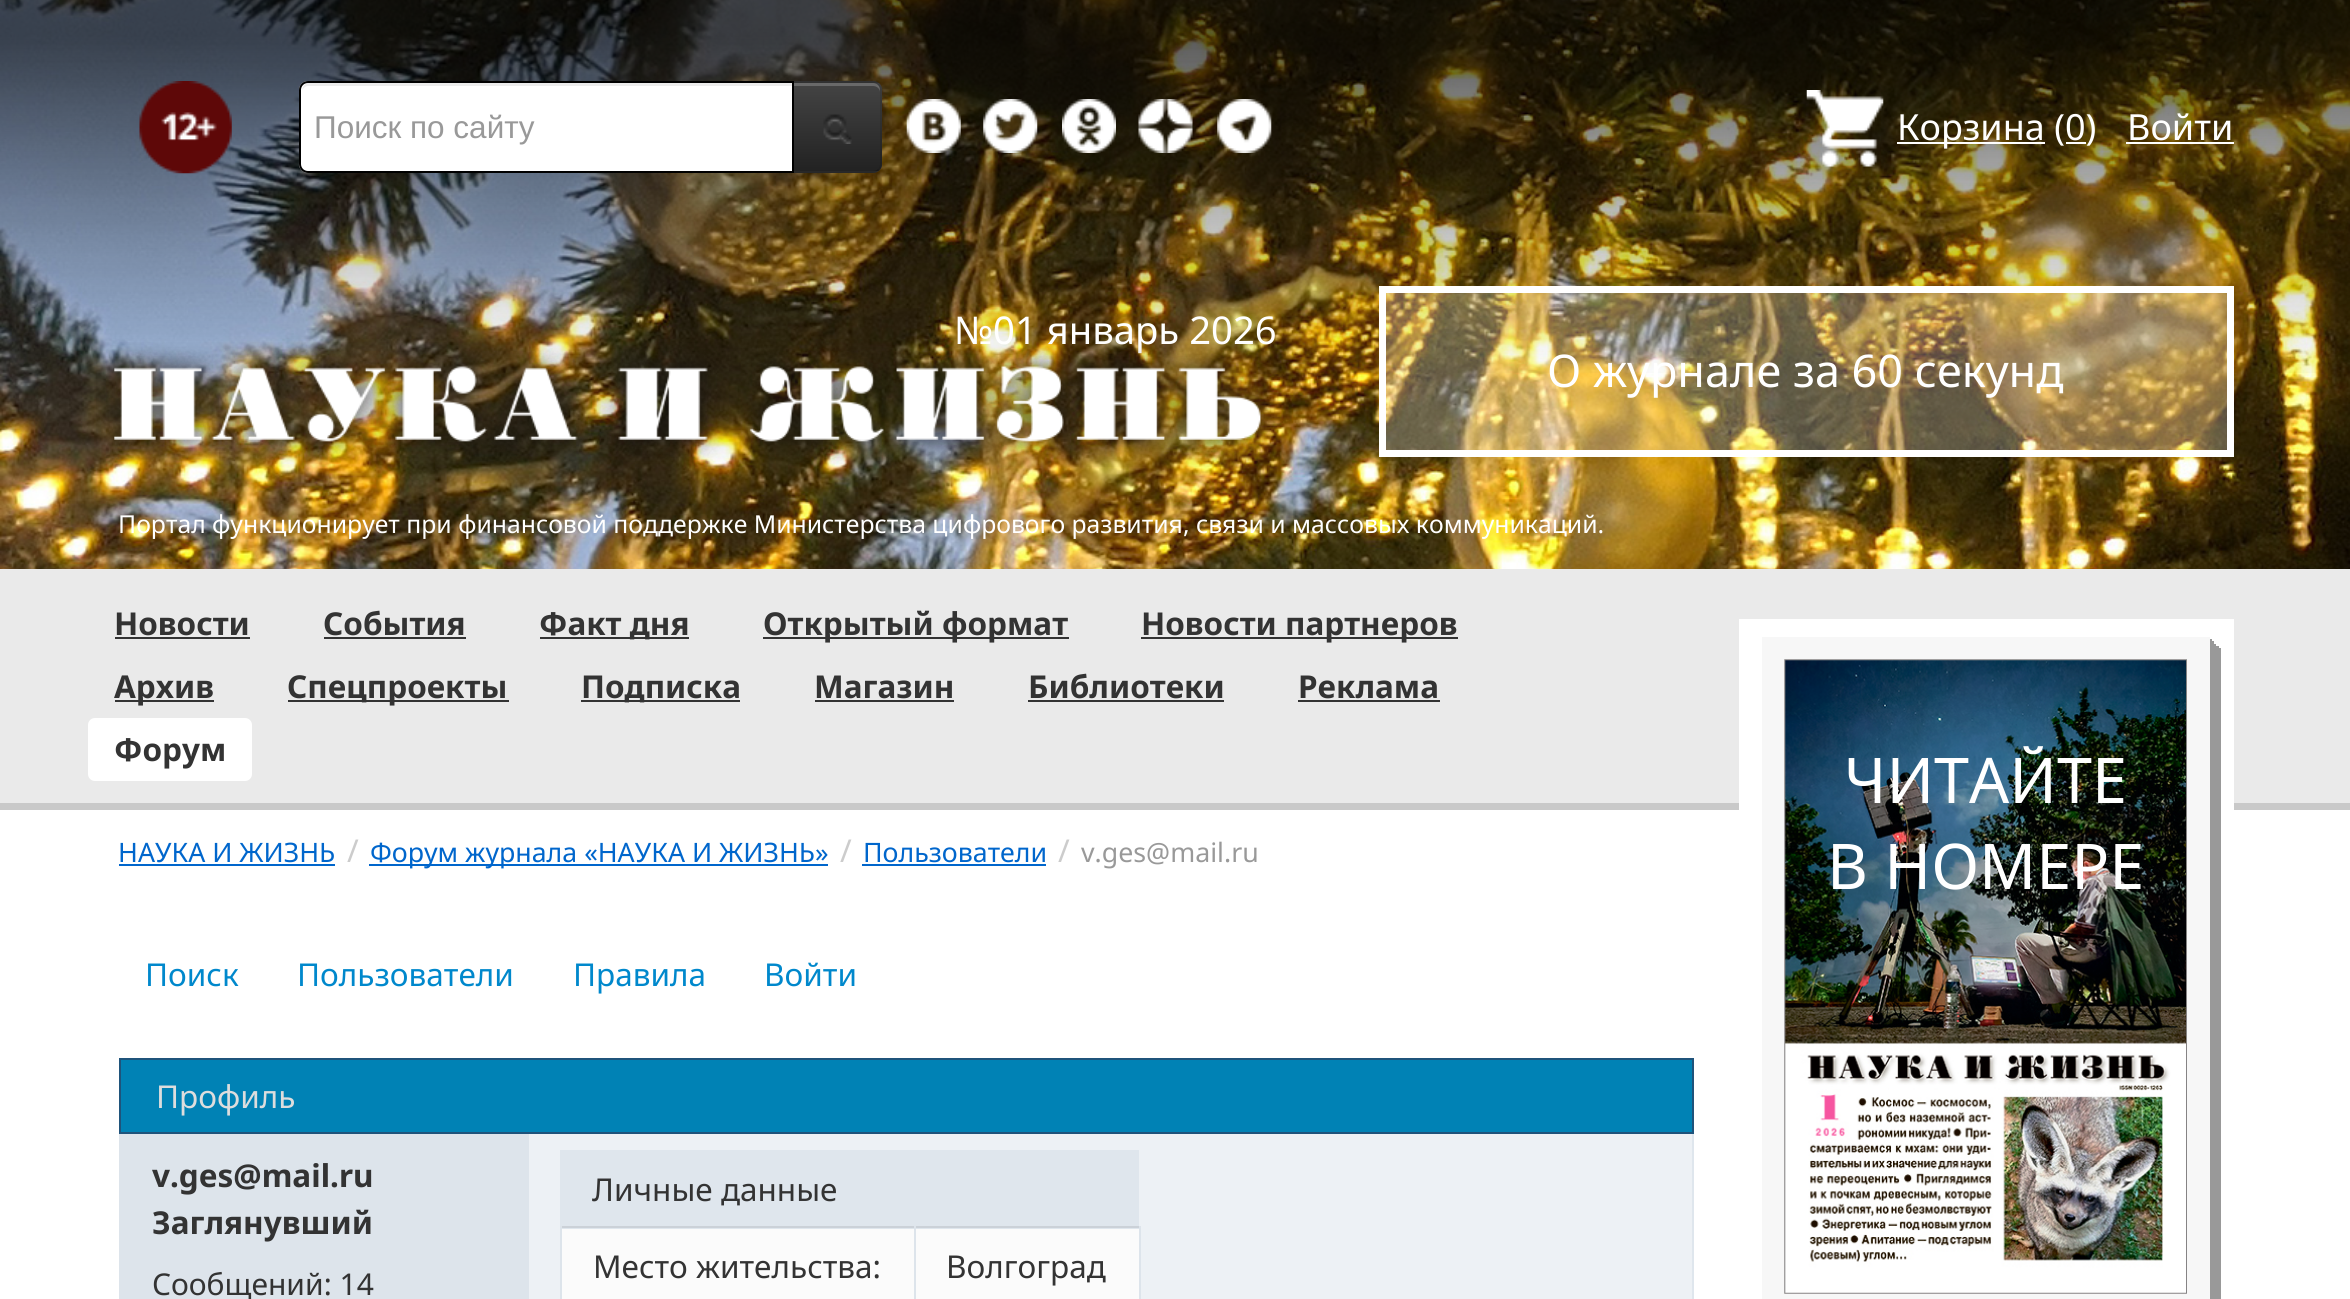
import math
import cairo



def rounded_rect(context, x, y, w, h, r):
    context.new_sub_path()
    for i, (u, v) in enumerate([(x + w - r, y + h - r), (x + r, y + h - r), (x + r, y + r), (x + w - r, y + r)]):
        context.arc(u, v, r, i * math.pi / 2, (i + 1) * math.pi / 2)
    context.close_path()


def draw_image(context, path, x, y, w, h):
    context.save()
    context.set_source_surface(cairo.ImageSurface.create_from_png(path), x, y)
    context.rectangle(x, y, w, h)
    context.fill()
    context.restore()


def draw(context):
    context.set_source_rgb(1, 1, 1)
    context.paint()
    draw_image(context, "images/1.png", 0, 0, 2350, 569)
    context.set_source_rgba(0, 0, 0, 0.64)
    context.rectangle(0, 0, 2350, 36)
    context.fill()
    draw_image(context, "images/2.png", 0, 36, 2350, 337)
    draw_image(context, "images/3.png", 139, 81, 93, 93)
    context.set_source_rgb(54 / 255, 54 / 255, 54 / 255)
    context.new_path()
    context.move_to(792, 81)
    context.line_to(873, 81)
    context.curve_to(878, 81, 882, 85, 882, 90)
    context.line_to(882, 164)
    context.curve_to(882, 169, 878, 173, 873, 173)
    context.line_to(792, 173)
    context.close_path()
    context.fill()
    context.save()
    context.new_path()
    context.move_to(792, 81)
    context.line_to(873, 81)
    context.curve_to(878, 81, 882, 85, 882, 90)
    context.line_to(882, 164)
    context.curve_to(882, 169, 878, 173, 873, 173)
    context.line_to(792, 173)
    context.close_path()
    context.clip()
    gradient = cairo.LinearGradient(837, 83, 837, 171)
    gradient.add_color_stop_rgba(0, 68 / 255, 68 / 255, 68 / 255, 1)
    gradient.add_color_stop_rgba(1, 34 / 255, 34 / 255, 34 / 255, 1)
    context.set_source(gradient)
    context.rectangle(794, 83, 88, 88)
    context.fill()
    context.restore()
    context.set_source_rgba(1, 1, 1, 0.2)
    context.new_path()
    context.move_to(794, 86)
    context.line_to(873, 86)
    context.curve_to(877, 86, 880, 89, 880, 92)
    context.line_to(880, 90)
    context.curve_to(880, 86, 877, 83, 873, 83)
    context.line_to(794, 83)
    context.close_path()
    context.fill()
    context.set_source_rgba(0, 0, 0, 0.1)
    context.new_path()
    context.move_to(792, 81)
    context.line_to(794, 83)
    context.line_to(873, 83)
    context.curve_to(875, 83, 877, 84, 878, 85)
    context.line_to(879, 84)
    context.curve_to(878, 82, 876, 81, 873, 81)
    context.close_path()
    context.fill()
    context.new_path()
    context.move_to(882, 164)
    context.line_to(882, 90)
    context.curve_to(882, 88, 881, 85, 879, 84)
    context.line_to(878, 85)
    context.curve_to(879, 86, 880, 88, 880, 90)
    context.line_to(880, 164)
    context.curve_to(880, 166, 879, 168, 878, 169)
    context.line_to(879, 170)
    context.curve_to(881, 169, 882, 167, 882, 164)
    context.close_path()
    context.fill()
    context.set_source_rgba(0, 0, 0, 0.25)
    context.new_path()
    context.move_to(879, 170)
    context.curve_to(878, 172, 875, 173, 873, 173)
    context.line_to(792, 173)
    context.line_to(794, 171)
    context.line_to(873, 171)
    context.curve_to(875, 171, 877, 170, 878, 169)
    context.close_path()
    context.fill()
    context.set_source_rgb(1, 1, 1)
    context.new_path()
    context.move_to(308, 81)
    context.line_to(794, 81)
    context.line_to(794, 173)
    context.line_to(308, 173)
    context.curve_to(303, 173, 299, 169, 299, 164)
    context.line_to(299, 90)
    context.curve_to(299, 85, 303, 81, 308, 81)
    context.close_path()
    context.fill()
    context.set_source_rgb(236 / 255, 236 / 255, 236 / 255)
    context.new_path()
    context.move_to(308, 86)
    context.line_to(792, 86)
    context.line_to(792, 83)
    context.line_to(309, 83)
    context.curve_to(304, 83, 302, 88, 302, 92)
    context.curve_to(302, 89, 305, 86, 308, 86)
    context.close_path()
    context.fill()
    context.new_path()
    context.move_to(308, 82)
    context.line_to(793, 82)
    context.line_to(793, 172)
    context.line_to(308, 172)
    context.curve_to(303.5, 172, 300, 168.5, 300, 164)
    context.line_to(300, 90)
    context.curve_to(300, 85.5, 303.5, 82, 308, 82)
    context.close_path()
    context.set_source_rgb(0, 0, 0)
    context.stroke()
    draw_image(context, "images/4.png", 823, 114, 29, 30)
    draw_image(context, "images/5.png", 906, 99, 55, 54)
    draw_image(context, "images/6.png", 983, 99, 55, 54)
    draw_image(context, "images/7.png", 1062, 99, 54, 54)
    draw_image(context, "images/8.png", 1138, 99, 55, 54)
    draw_image(context, "images/9.png", 1217, 99, 55, 54)
    draw_image(context, "images/10.png", 1806, 90, 78, 77)
    context.set_source_rgb(1, 1, 1)
    context.rectangle(1897, 142, 148, 2)
    context.fill()
    context.rectangle(2066, 142, 20, 2)
    context.fill()
    context.rectangle(2126, 142, 108, 2)
    context.fill()
    context.set_source_rgba(1, 1, 1, 0.25)
    context.rectangle(1382.5, 289.5, 848, 164)
    context.fill_preserve()
    context.set_source_rgb(1, 1, 1)
    context.set_line_width(7)
    context.stroke()
    context.set_source_rgb(234 / 255, 234 / 255, 234 / 255)
    context.rectangle(0, 569, 2350, 234)
    context.fill()
    context.set_source_rgb(201 / 255, 201 / 255, 201 / 255)
    context.rectangle(0, 803, 2350, 7)
    context.fill()
    context.set_source_rgb(51 / 255, 51 / 255, 51 / 255)
    context.rectangle(115, 637, 135, 2)
    context.fill()
    context.rectangle(324, 637, 142, 2)
    context.fill()
    context.rectangle(540, 637, 149, 2)
    context.fill()
    context.rectangle(763, 637, 306, 2)
    context.fill()
    context.rectangle(1141, 637, 317, 2)
    context.fill()
    context.rectangle(115, 700, 99, 2)
    context.fill()
    context.rectangle(288, 700, 221, 2)
    context.fill()
    context.rectangle(581, 700, 159, 2)
    context.fill()
    context.rectangle(815, 700, 139, 2)
    context.fill()
    context.rectangle(1028, 700, 196, 2)
    context.fill()
    context.rectangle(1298, 700, 142, 2)
    context.fill()
    context.set_source_rgb(1, 1, 1)
    rounded_rect(context, 88, 718, 164, 63, 7)
    context.fill()
    context.rectangle(1739, 619, 495, 191)
    context.fill()
    context.set_source_rgb(247 / 255, 247 / 255, 247 / 255)
    context.rectangle(1762, 637, 448, 662)
    context.fill()
    context.set_source_rgb(153 / 255, 153 / 255, 153 / 255)
    context.new_path()
    context.move_to(1773, 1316)
    context.line_to(1773, 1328)
    context.line_to(2221, 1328)
    context.line_to(2221, 648)
    context.line_to(2210, 648)
    context.line_to(2210, 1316)
    context.close_path()
    context.fill()
    context.new_path()
    context.move_to(1771, 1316)
    context.line_to(1771, 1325)
    context.line_to(2219, 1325)
    context.line_to(2219, 646)
    context.line_to(2210, 646)
    context.line_to(2210, 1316)
    context.close_path()
    context.fill()
    context.new_path()
    context.move_to(1769, 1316)
    context.line_to(1769, 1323)
    context.line_to(2216, 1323)
    context.line_to(2216, 644)
    context.line_to(2210, 644)
    context.line_to(2210, 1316)
    context.close_path()
    context.fill()
    context.new_path()
    context.move_to(1766, 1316)
    context.line_to(1766, 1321)
    context.line_to(2214, 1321)
    context.line_to(2214, 641)
    context.line_to(2210, 641)
    context.line_to(2210, 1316)
    context.close_path()
    context.fill()
    context.new_path()
    context.move_to(1764, 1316)
    context.line_to(1764, 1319)
    context.line_to(2212, 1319)
    context.line_to(2212, 639)
    context.line_to(2210, 639)
    context.line_to(2210, 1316)
    context.close_path()
    context.fill()
    draw_image(context, "images/12.png", 1784, 659, 403, 635)
    context.set_source_rgb(0, 102 / 255, 204 / 255)
    context.rectangle(119, 864, 216, 2)
    context.fill()
    context.rectangle(369, 864, 459, 2)
    context.fill()
    context.rectangle(862, 864, 184, 2)
    context.fill()
    context.set_source_rgb(0, 130 / 255, 181 / 255)
    context.rectangle(120, 1059, 1573, 74)
    context.fill_preserve()
    context.set_source_rgb(31 / 255, 83 / 255, 123 / 255)
    context.set_line_width(2)
    context.stroke()
    context.set_source_rgb(221 / 255, 228 / 255, 235 / 255)
    context.rectangle(119, 1134, 410, 165)
    context.fill()
    context.set_source_rgb(237 / 255, 241 / 255, 245 / 255)
    context.rectangle(529, 1134, 1163, 165)
    context.fill()
    context.set_source_rgb(223 / 255, 230 / 255, 237 / 255)
    context.rectangle(1692, 1134, 2, 165)
    context.fill()
    context.rectangle(560, 1150, 579, 79)
    context.fill()
    context.set_source_rgb(251 / 255, 251 / 255, 251 / 255)
    context.rectangle(562, 1229, 352, 70)
    context.fill()
    context.set_source_rgb(203 / 255, 209 / 255, 216 / 255)
    context.rectangle(560, 1226, 581, 2)
    context.fill()
    context.set_source_rgb(221 / 255, 228 / 255, 235 / 255)
    context.rectangle(914, 1226, 2, 73)
    context.fill()
    context.rectangle(560, 1226, 2, 73)
    context.fill()
    context.set_source_rgb(251 / 255, 251 / 255, 251 / 255)
    context.rectangle(916, 1229, 223, 70)
    context.fill()
    context.set_source_rgb(221 / 255, 228 / 255, 235 / 255)
    context.rectangle(1139, 1226, 2, 73)
    context.fill()
    context.select_font_face("Liberation Sans")
    context.set_font_size(31.5)
    context.set_source_rgb(153 / 255, 153 / 255, 153 / 255)
    context.move_to(314, 138)
    context.show_text("Поиск по сайту")
    context.select_font_face("Noto Sans")
    context.set_font_size(36)
    context.set_source_rgb(1, 1, 1)
    context.move_to(1897, 140)
    context.show_text("Корзина (0)")
    context.move_to(2127, 140)
    context.show_text("Войти")
    context.set_font_size(38.25)
    context.move_to(954, 344)
    context.show_text("№01 январь 2026")
    draw_image(context, "images/11.png", 96, 342, 1179, 125)
    context.set_font_size(45)
    context.move_to(1547, 387)
    context.show_text("О журнале за 60 секунд")
    context.set_font_size(24.75)
    context.move_to(118, 533)
    context.show_text("Портал функционирует при финансовой поддержке Министерства цифрового развития, связи и массовых коммуникаций.")
    context.select_font_face("Noto Sans", cairo.FontSlant.NORMAL, cairo.FontWeight.BOLD)
    context.set_font_size(31.5)
    context.set_source_rgb(51 / 255, 51 / 255, 51 / 255)
    context.move_to(114, 635)
    context.show_text("Новости")
    context.move_to(323, 635)
    context.show_text("События")
    context.move_to(539, 635)
    context.show_text("Факт дня")
    context.move_to(763, 635)
    context.show_text("Открытый формат")
    context.move_to(1141, 635)
    context.show_text("Новости партнеров")
    context.move_to(114, 698)
    context.show_text("Архив")
    context.move_to(287, 698)
    context.show_text("Спецпроекты")
    context.move_to(581, 698)
    context.show_text("Подписка")
    context.move_to(814, 698)
    context.show_text("Магазин")
    context.move_to(1028, 698)
    context.show_text("Библиотеки")
    context.move_to(1298, 698)
    context.show_text("Реклама")
    context.move_to(114, 761)
    context.show_text("Форум")
    context.select_font_face("Noto Sans")
    context.set_font_size(63)
    context.set_source_rgb(1, 1, 1)
    context.move_to(1844, 803)
    context.show_text("ЧИТАЙТЕ")
    context.move_to(1827, 889)
    context.show_text("В НОМЕРЕ")
    context.set_font_size(26.75)
    context.set_source_rgb(0, 102 / 255, 204 / 255)
    context.move_to(118, 862)
    context.show_text("НАУКА И ЖИЗНЬ")
    context.set_font_size(31.5)
    context.set_source_rgb(204 / 255, 204 / 255, 204 / 255)
    context.move_to(347, 862)
    context.show_text("/")
    context.set_font_size(26.75)
    context.set_source_rgb(0, 102 / 255, 204 / 255)
    context.move_to(370, 862)
    context.show_text("Форум журнала «НАУКА И ЖИЗНЬ»")
    context.set_font_size(31.5)
    context.set_source_rgb(204 / 255, 204 / 255, 204 / 255)
    context.move_to(840, 862)
    context.show_text("/")
    context.set_font_size(26.75)
    context.set_source_rgb(0, 102 / 255, 204 / 255)
    context.move_to(863, 862)
    context.show_text("Пользователи")
    context.set_font_size(31.5)
    context.set_source_rgb(204 / 255, 204 / 255, 204 / 255)
    context.move_to(1058, 862)
    context.show_text("/")
    context.set_font_size(26.75)
    context.set_source_rgb(153 / 255, 153 / 255, 153 / 255)
    context.move_to(1081, 862)
    context.show_text("v.ges@mail.ru")
    context.set_font_size(31.5)
    context.set_source_rgb(0, 136 / 255, 204 / 255)
    context.move_to(145, 986)
    context.show_text("Поиск")
    context.move_to(297, 986)
    context.show_text("Пользователи")
    context.move_to(573, 986)
    context.show_text("Правила")
    context.move_to(764, 986)
    context.show_text("Войти")
    context.set_source_rgb(221 / 255, 221 / 255, 221 / 255)
    context.move_to(156, 1108)
    context.show_text("Профиль")
    context.select_font_face("Noto Sans", cairo.FontSlant.NORMAL, cairo.FontWeight.BOLD)
    context.set_source_rgb(51 / 255, 51 / 255, 51 / 255)
    context.move_to(152, 1187)
    context.show_text("v.ges@mail.ru")
    context.move_to(152, 1234)
    context.show_text("Заглянувший")
    context.select_font_face("Noto Sans")
    context.set_font_size(30)
    context.move_to(152, 1295)
    context.show_text("Cообщений: 14")
    context.set_font_size(31.5)
    context.move_to(592, 1201)
    context.show_text("Личные данные")
    context.move_to(593, 1278)
    context.show_text("Место жительства:")
    context.move_to(946, 1278)
    context.show_text("Волгоград")


surface = cairo.ImageSurface(cairo.Format.RGB24, 2350, 1299)
context = cairo.Context(surface)
options = cairo.FontOptions()
options.set_hint_metrics(cairo.HintMetrics.OFF)
options.set_hint_style(cairo.HintStyle.NONE)
context.set_font_options(options)
context.set_miter_limit(4)
draw(context)
surface.write_to_png("out.png")
